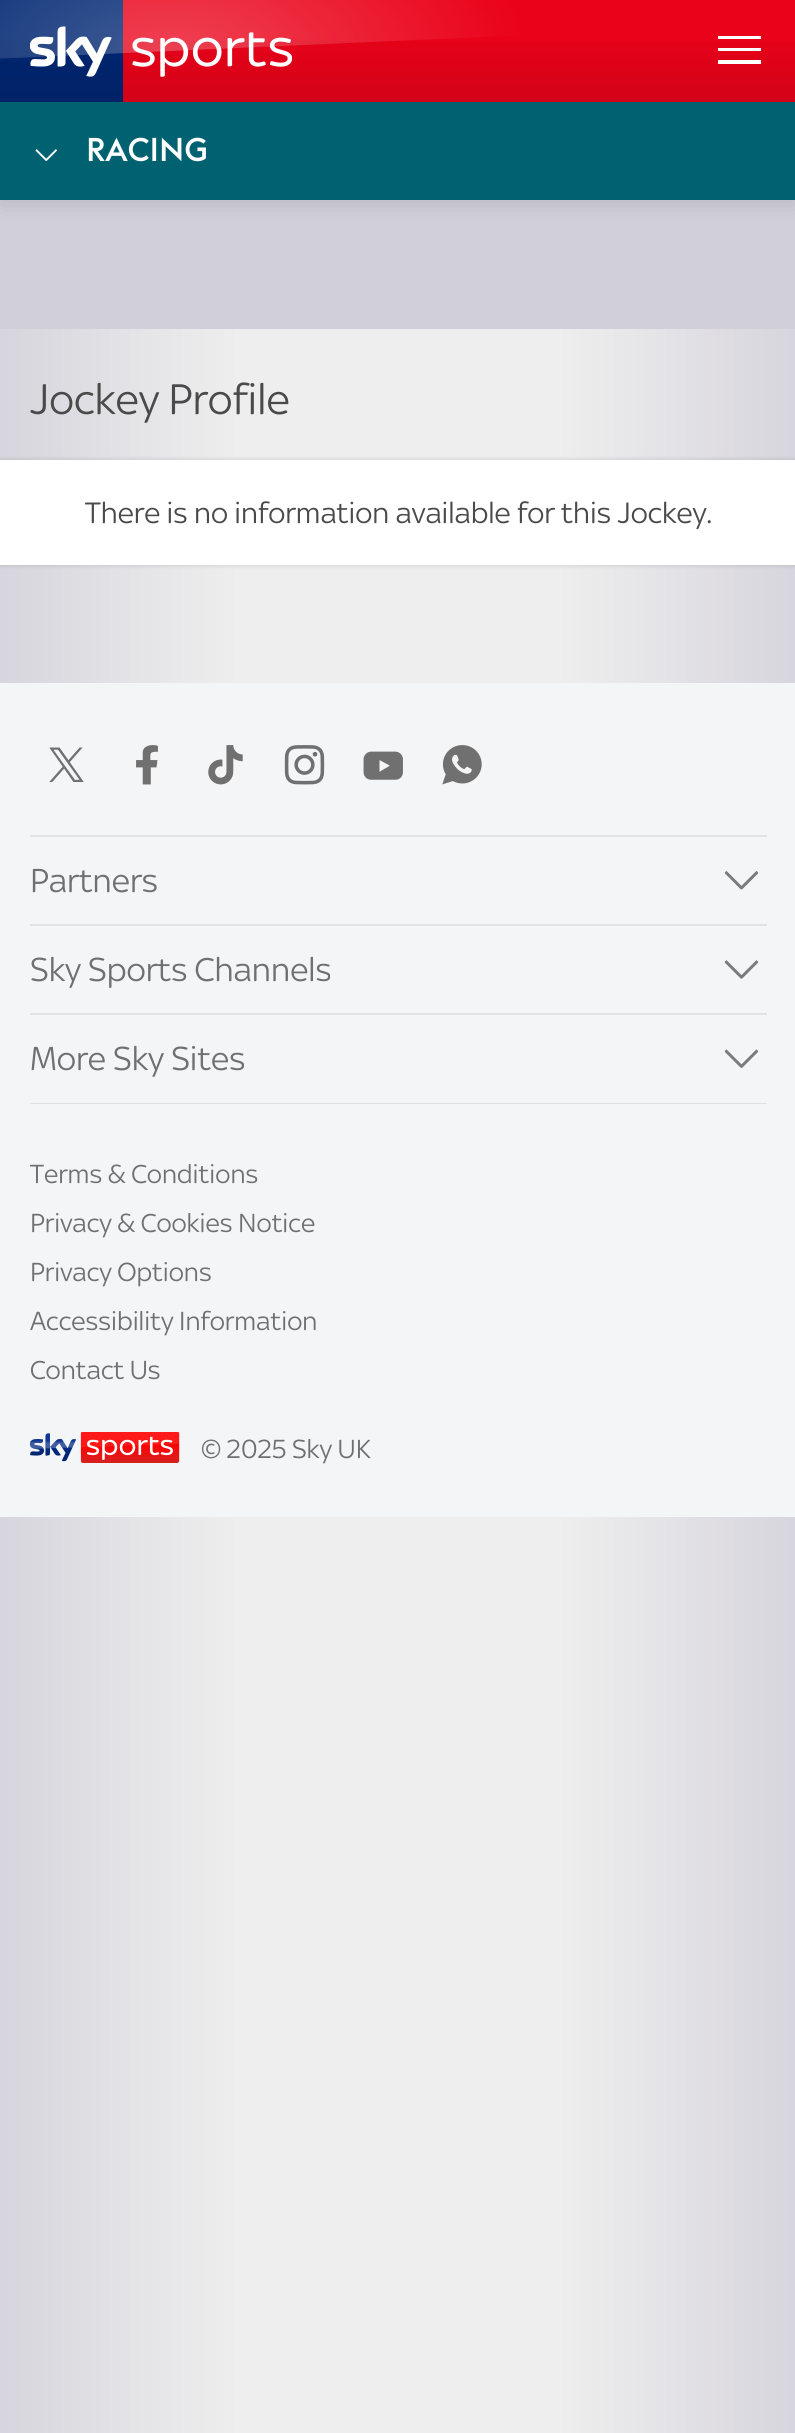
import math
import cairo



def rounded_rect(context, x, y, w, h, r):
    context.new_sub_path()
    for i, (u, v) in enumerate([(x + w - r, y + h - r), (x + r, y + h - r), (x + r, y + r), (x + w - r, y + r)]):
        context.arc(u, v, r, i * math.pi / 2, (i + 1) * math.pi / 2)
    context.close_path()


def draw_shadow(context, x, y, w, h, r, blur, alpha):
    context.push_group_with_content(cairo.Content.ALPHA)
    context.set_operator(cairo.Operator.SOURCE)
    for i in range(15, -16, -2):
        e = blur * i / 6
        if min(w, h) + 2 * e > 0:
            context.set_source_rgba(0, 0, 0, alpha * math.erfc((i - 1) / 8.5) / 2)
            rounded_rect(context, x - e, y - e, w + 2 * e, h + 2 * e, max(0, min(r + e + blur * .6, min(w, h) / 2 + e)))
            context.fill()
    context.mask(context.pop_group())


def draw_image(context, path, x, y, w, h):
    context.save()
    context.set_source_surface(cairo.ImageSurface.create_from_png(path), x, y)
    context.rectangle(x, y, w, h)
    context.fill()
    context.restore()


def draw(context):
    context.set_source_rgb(1, 1, 1)
    context.paint()
    gradient = cairo.LinearGradient(0, 759, 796, 759)
    gradient.add_color_stop_rgba(0, 215 / 255, 213 / 255, 221 / 255, 1)
    gradient.add_color_stop_rgba(0.3, 238 / 255, 238 / 255, 238 / 255, 1)
    gradient.add_color_stop_rgba(0.7, 238 / 255, 238 / 255, 238 / 255, 1)
    gradient.add_color_stop_rgba(1, 215 / 255, 213 / 255, 221 / 255, 1)
    context.set_source(gradient)
    context.rectangle(0, 329, 795, 2104)
    context.fill()
    context.set_source_rgb(209 / 255, 207 / 255, 216 / 255)
    context.rectangle(0, 200, 795, 129)
    context.fill()
    context.set_source_rgb(0, 0, 0)
    draw_shadow(context, 0, 2, 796, 199, 0, 13, 0.14)
    context.set_source_rgb(0, 38 / 255, 114 / 255)
    context.rectangle(0, 0, 30, 102)
    context.fill()
    context.set_source_rgb(234 / 255, 2 / 255, 26 / 255)
    context.rectangle(767, 0, 28, 102)
    context.fill()
    gradient = cairo.LinearGradient(398, 102, 398, 0)
    gradient.add_color_stop_rgba(0, 0, 0, 0, 0.1)
    gradient.add_color_stop_rgba(0.76, 0, 0, 0, 0)
    context.set_source(gradient)
    context.rectangle(0, 41, 795, 61)
    context.fill()
    context.set_source_rgb(0, 38 / 255, 114 / 255)
    context.rectangle(30, 0, 93, 102)
    context.fill()
    context.set_source_rgb(234 / 255, 2 / 255, 26 / 255)
    context.rectangle(123, 0, 644, 102)
    context.fill()
    gradient = cairo.LinearGradient(398, 102, 398, 0)
    gradient.add_color_stop_rgba(0, 0, 0, 0, 0.1)
    gradient.add_color_stop_rgba(0.76, 0, 0, 0, 0)
    context.set_source(gradient)
    context.rectangle(30, 41, 737, 61)
    context.fill()
    gradient = cairo.RadialGradient(0, 0, 0, 0, 0, 1)
    gradient.set_matrix(cairo.Matrix(1 / 358, 0, 0, 1 / 175, -1 * 170 / 358, -1 * 51 / 175))
    gradient.add_color_stop_rgba(0, 1, 1, 1, 0.25)
    gradient.add_color_stop_rgba(1, 1, 1, 1, 0)
    context.set_source(gradient)
    context.new_path()
    context.move_to(-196, -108)
    context.line_to(520, -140)
    context.line_to(527, 35)
    context.line_to(-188, 67)
    context.line_to(-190, 24)
    context.close_path()
    context.fill()
    draw_image(context, "images/1.png", 30, 26, 262, 51)
    context.set_source_rgb(1, 1, 1)
    context.rectangle(718, 36, 43, 3)
    context.fill()
    context.rectangle(718, 48, 43, 3)
    context.fill()
    context.rectangle(718, 60, 43, 4)
    context.fill()
    context.set_source_rgb(0, 98 / 255, 112 / 255)
    context.rectangle(0, 102, 795, 98)
    context.fill()
    draw_image(context, "images/2.png", 35, 149, 22, 12)
    context.set_source_rgb(0, 0, 0)
    draw_shadow(context, 0, 460, 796, 105, 0, 2.5, 0.15)
    context.set_source_rgb(1, 1, 1)
    context.rectangle(0, 460, 795, 105)
    context.fill()
    context.set_source_rgb(244 / 255, 245 / 255, 247 / 255)
    context.rectangle(0, 683, 795, 834)
    context.fill()
    context.set_source_rgb(226 / 255, 226 / 255, 226 / 255)
    context.rectangle(30, 835, 737, 2)
    context.fill()
    draw_image(context, "images/3.png", 49, 747, 35, 35)
    draw_image(context, "images/4.png", 136, 745, 22, 40)
    draw_image(context, "images/5.png", 208, 745, 35, 40)
    draw_image(context, "images/6.png", 284, 745, 41, 40)
    draw_image(context, "images/7.png", 363, 751, 40, 29)
    draw_image(context, "images/8.png", 442, 745, 40, 40)
    context.rectangle(30, 924, 737, 2)
    context.fill()
    draw_image(context, "images/9.png", 724, 871, 35, 19)
    context.rectangle(30, 1013, 737, 2)
    context.fill()
    draw_image(context, "images/10.png", 724, 960, 35, 19)
    context.rectangle(30, 1103, 737, 1)
    context.fill()
    draw_image(context, "images/11.png", 724, 1049, 35, 19)
    draw_image(context, "images/12.png", 30, 1432, 150, 31)
    context.select_font_face("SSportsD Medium")
    context.set_font_size(32.5)
    context.set_source_rgb(1, 1, 1)
    context.move_to(86, 161)
    context.show_text("Racing")
    context.select_font_face("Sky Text")
    context.set_font_size(45.75)
    context.set_source_rgb(74 / 255, 74 / 255, 74 / 255)
    context.move_to(30, 414)
    context.show_text("Jockey Profile")
    context.set_font_size(31.5)
    context.move_to(85, 523)
    context.show_text("There is no information available for this Jockey.")
    context.set_font_size(35.6)
    context.set_source_rgb(112 / 255, 112 / 255, 112 / 255)
    context.move_to(30, 892)
    context.show_text("Partners")
    context.move_to(30, 981)
    context.show_text("Sky Sports Channels")
    context.move_to(30, 1070)
    context.show_text("More Sky Sites")
    context.set_font_size(28)
    context.move_to(30, 1183)
    context.show_text("Terms & Conditions")
    context.move_to(30, 1232)
    context.show_text("Privacy & Cookies Notice")
    context.move_to(30, 1281)
    context.show_text("Privacy Options")
    context.move_to(30, 1330)
    context.show_text("Accessibility Information")
    context.move_to(30, 1379)
    context.show_text("Contact Us")
    context.move_to(201, 1458)
    context.show_text("© 2025 Sky UK")


surface = cairo.ImageSurface(cairo.Format.RGB24, 795, 2433)
context = cairo.Context(surface)
options = cairo.FontOptions()
options.set_hint_metrics(cairo.HintMetrics.OFF)
options.set_hint_style(cairo.HintStyle.NONE)
context.set_font_options(options)
context.set_miter_limit(4)
draw(context)
surface.write_to_png("out.png")
